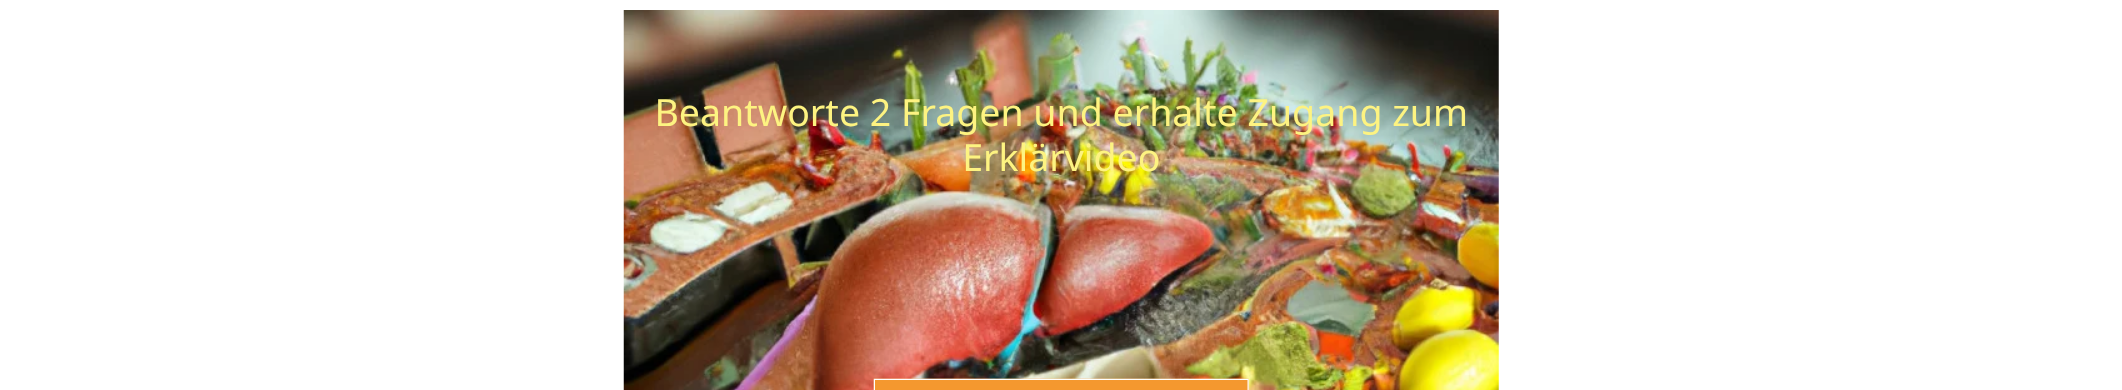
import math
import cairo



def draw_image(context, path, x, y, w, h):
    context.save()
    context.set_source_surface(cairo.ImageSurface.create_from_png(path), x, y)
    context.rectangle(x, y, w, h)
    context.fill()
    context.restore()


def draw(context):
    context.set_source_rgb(1, 1, 1)
    context.paint()
    draw_image(context, "images/1.png", 623, 10, 876, 380)


surface = cairo.ImageSurface(cairo.Format.RGB24, 2122, 390)
context = cairo.Context(surface)
options = cairo.FontOptions()
options.set_hint_metrics(cairo.HintMetrics.OFF)
options.set_hint_style(cairo.HintStyle.NONE)
context.set_font_options(options)
context.set_miter_limit(4)
draw(context)
surface.write_to_png("out.png")
